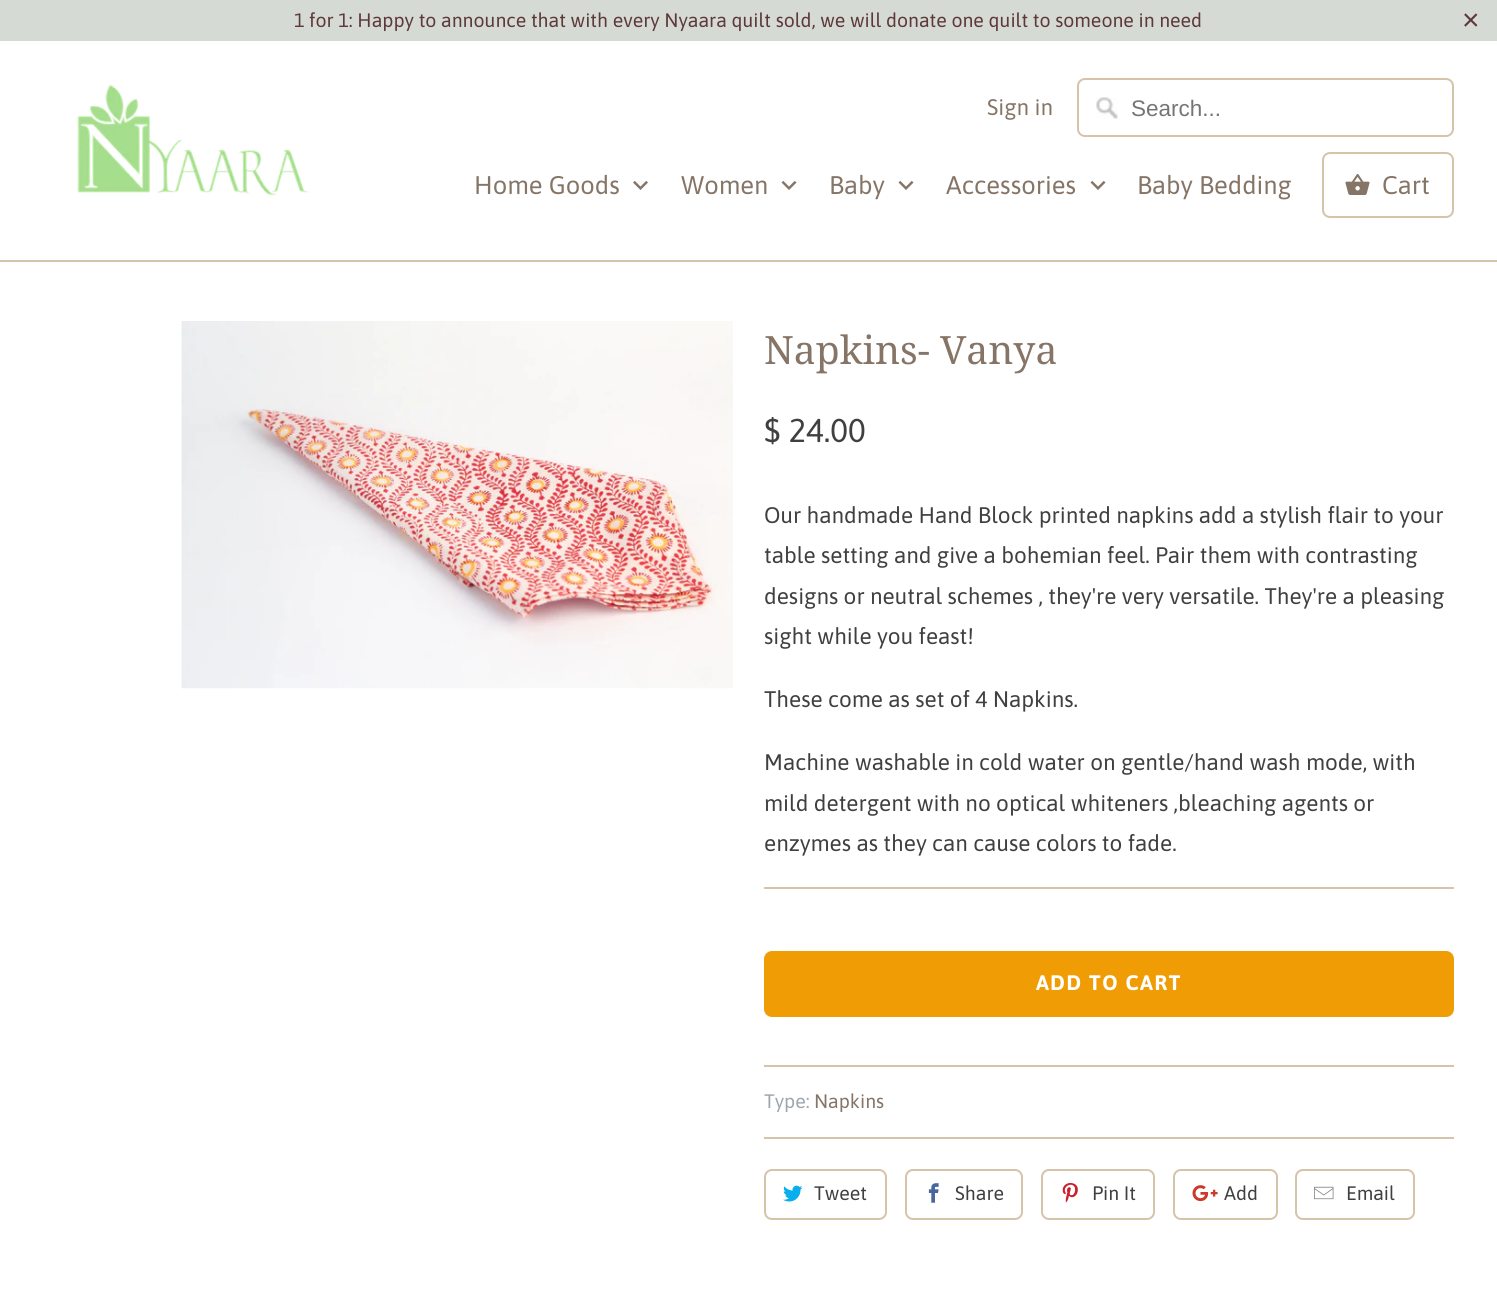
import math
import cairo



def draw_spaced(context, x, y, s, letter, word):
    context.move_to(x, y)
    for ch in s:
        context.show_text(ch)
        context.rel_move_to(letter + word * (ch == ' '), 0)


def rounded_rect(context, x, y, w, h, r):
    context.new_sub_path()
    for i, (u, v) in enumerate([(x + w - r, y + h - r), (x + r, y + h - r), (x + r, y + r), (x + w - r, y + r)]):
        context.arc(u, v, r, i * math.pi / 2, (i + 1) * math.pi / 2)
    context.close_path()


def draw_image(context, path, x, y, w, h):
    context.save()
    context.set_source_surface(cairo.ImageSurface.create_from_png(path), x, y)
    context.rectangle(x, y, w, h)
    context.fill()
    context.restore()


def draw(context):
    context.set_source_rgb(1, 1, 1)
    context.paint()
    context.set_source_rgb(213 / 255, 218 / 255, 213 / 255)
    context.rectangle(0, 0, 1497, 41)
    context.fill()
    context.set_source_rgb(213 / 255, 195 / 255, 170 / 255)
    context.rectangle(0, 260, 1497, 2)
    context.fill()
    draw_image(context, "images/1.png", 77, 84, 232, 112)
    draw_image(context, "images/2.png", 1096, 97, 22, 22)
    rounded_rect(context, 1078, 79, 375, 57, 7)
    context.stroke()
    draw_image(context, "images/3.png", 633, 180, 15, 10)
    draw_image(context, "images/4.png", 781, 180, 16, 10)
    draw_image(context, "images/4.png", 898, 180, 16, 10)
    draw_image(context, "images/4.png", 1090, 180, 16, 10)
    rounded_rect(context, 1323, 153, 130, 64, 7)
    context.stroke()
    draw_image(context, "images/5.png", 1345, 174, 25, 21)
    draw_image(context, "images/6.png", 181, 321, 552, 368)
    context.rectangle(764, 887, 690, 2)
    context.fill()
    context.set_source_rgb(240 / 255, 156 / 255, 5 / 255)
    rounded_rect(context, 764, 951, 690, 66, 8)
    context.fill()
    context.set_source_rgb(213 / 255, 195 / 255, 170 / 255)
    context.rectangle(764, 1065, 690, 2)
    context.fill()
    context.rectangle(764, 1137, 690, 2)
    context.fill()
    rounded_rect(context, 765, 1170, 121, 49, 7)
    context.stroke()
    draw_image(context, "images/7.png", 783, 1185, 20, 17)
    rounded_rect(context, 906, 1170, 116, 49, 7)
    context.stroke()
    draw_image(context, "images/8.png", 928, 1183, 11, 20)
    rounded_rect(context, 1042, 1170, 112, 49, 7)
    context.stroke()
    draw_image(context, "images/9.png", 1062, 1183, 16, 20)
    rounded_rect(context, 1174, 1170, 103, 49, 7)
    context.stroke()
    draw_image(context, "images/10.png", 1192, 1185, 26, 17)
    rounded_rect(context, 1296, 1170, 118, 49, 7)
    context.stroke()
    draw_image(context, "images/11.png", 1314, 1186, 20, 14)
    context.select_font_face("Asap")
    context.set_font_size(19.5)
    context.set_source_rgb(94 / 255, 57 / 255, 57 / 255)
    context.move_to(294, 27)
    context.show_text("1 for 1: Happy to announce that with every Nyaara quilt sold, we will donate one quilt to someone in need")
    context.select_font_face("Liberation Sans")
    context.set_font_size(30)
    context.move_to(1462, 30)
    context.show_text("×")
    context.select_font_face("Asap")
    context.set_font_size(22.5)
    context.set_source_rgb(134 / 255, 117 / 255, 102 / 255)
    context.move_to(987, 115)
    context.show_text("Sign in")
    context.select_font_face("Liberation Sans")
    context.set_source_rgb(117 / 255, 117 / 255, 117 / 255)
    context.move_to(1131, 116)
    context.show_text("Search...")
    context.select_font_face("Asap")
    context.set_font_size(25.5)
    context.set_source_rgb(134 / 255, 117 / 255, 102 / 255)
    context.move_to(474, 194)
    context.show_text("Home Goods")
    context.move_to(681, 194)
    context.show_text("Women")
    context.move_to(829, 194)
    context.show_text("Baby")
    context.move_to(946, 194)
    context.show_text("Accessories")
    context.move_to(1137, 194)
    context.show_text("Baby Bedding")
    context.move_to(1382, 194)
    context.show_text("Cart")
    context.select_font_face("Noto Serif")
    context.set_font_size(39)
    context.move_to(764, 364)
    context.show_text("Napkins- Vanya")
    context.select_font_face("Asap")
    context.set_font_size(33)
    context.set_source_rgb(64 / 255, 64 / 255, 64 / 255)
    context.move_to(764, 442)
    context.show_text("$ 24.00")
    context.set_font_size(22.5)
    context.move_to(764, 523)
    context.show_text("Our handmade Hand Block printed napkins add a stylish flair to your")
    context.move_to(764, 563)
    context.show_text("table setting and give a bohemian feel. Pair them with contrasting")
    context.move_to(764, 604)
    context.show_text("designs or neutral schemes , they're very versatile. They're a pleasing")
    context.move_to(764, 644)
    context.show_text("sight while you feast!")
    context.move_to(764, 707)
    context.show_text("These come as set of 4 Napkins.")
    context.move_to(764, 770)
    context.show_text("Machine washable in cold water on gentle/hand wash mode, with")
    context.move_to(764, 811)
    context.show_text("mild detergent with no optical whiteners ,bleaching agents or")
    context.move_to(764, 851)
    context.show_text("enzymes as they can cause colors to fade.")
    context.select_font_face("Asap", cairo.FontSlant.NORMAL, cairo.FontWeight.BOLD)
    context.set_font_size(21)
    context.set_source_rgb(1, 1, 1)
    draw_spaced(context, 1036, 990, "ADD TO CART", 1.5, 0)
    context.select_font_face("Asap")
    context.set_font_size(19.5)
    context.set_source_rgb(157 / 255, 166 / 255, 174 / 255)
    context.move_to(764, 1108)
    context.show_text("Type:")
    context.set_source_rgb(134 / 255, 117 / 255, 102 / 255)
    context.move_to(814, 1108)
    context.show_text("Napkins")
    context.set_source_rgb(64 / 255, 64 / 255, 64 / 255)
    context.move_to(814, 1200)
    context.show_text("Tweet")
    context.move_to(955, 1200)
    context.show_text("Share")
    context.move_to(1092, 1200)
    context.show_text("Pin It")
    context.move_to(1224, 1200)
    context.show_text("Add")
    context.move_to(1346, 1200)
    context.show_text("Email")


surface = cairo.ImageSurface(cairo.Format.RGB24, 1497, 1312)
context = cairo.Context(surface)
options = cairo.FontOptions()
options.set_hint_metrics(cairo.HintMetrics.OFF)
options.set_hint_style(cairo.HintStyle.NONE)
context.set_font_options(options)
context.set_miter_limit(4)
draw(context)
surface.write_to_png("out.png")
